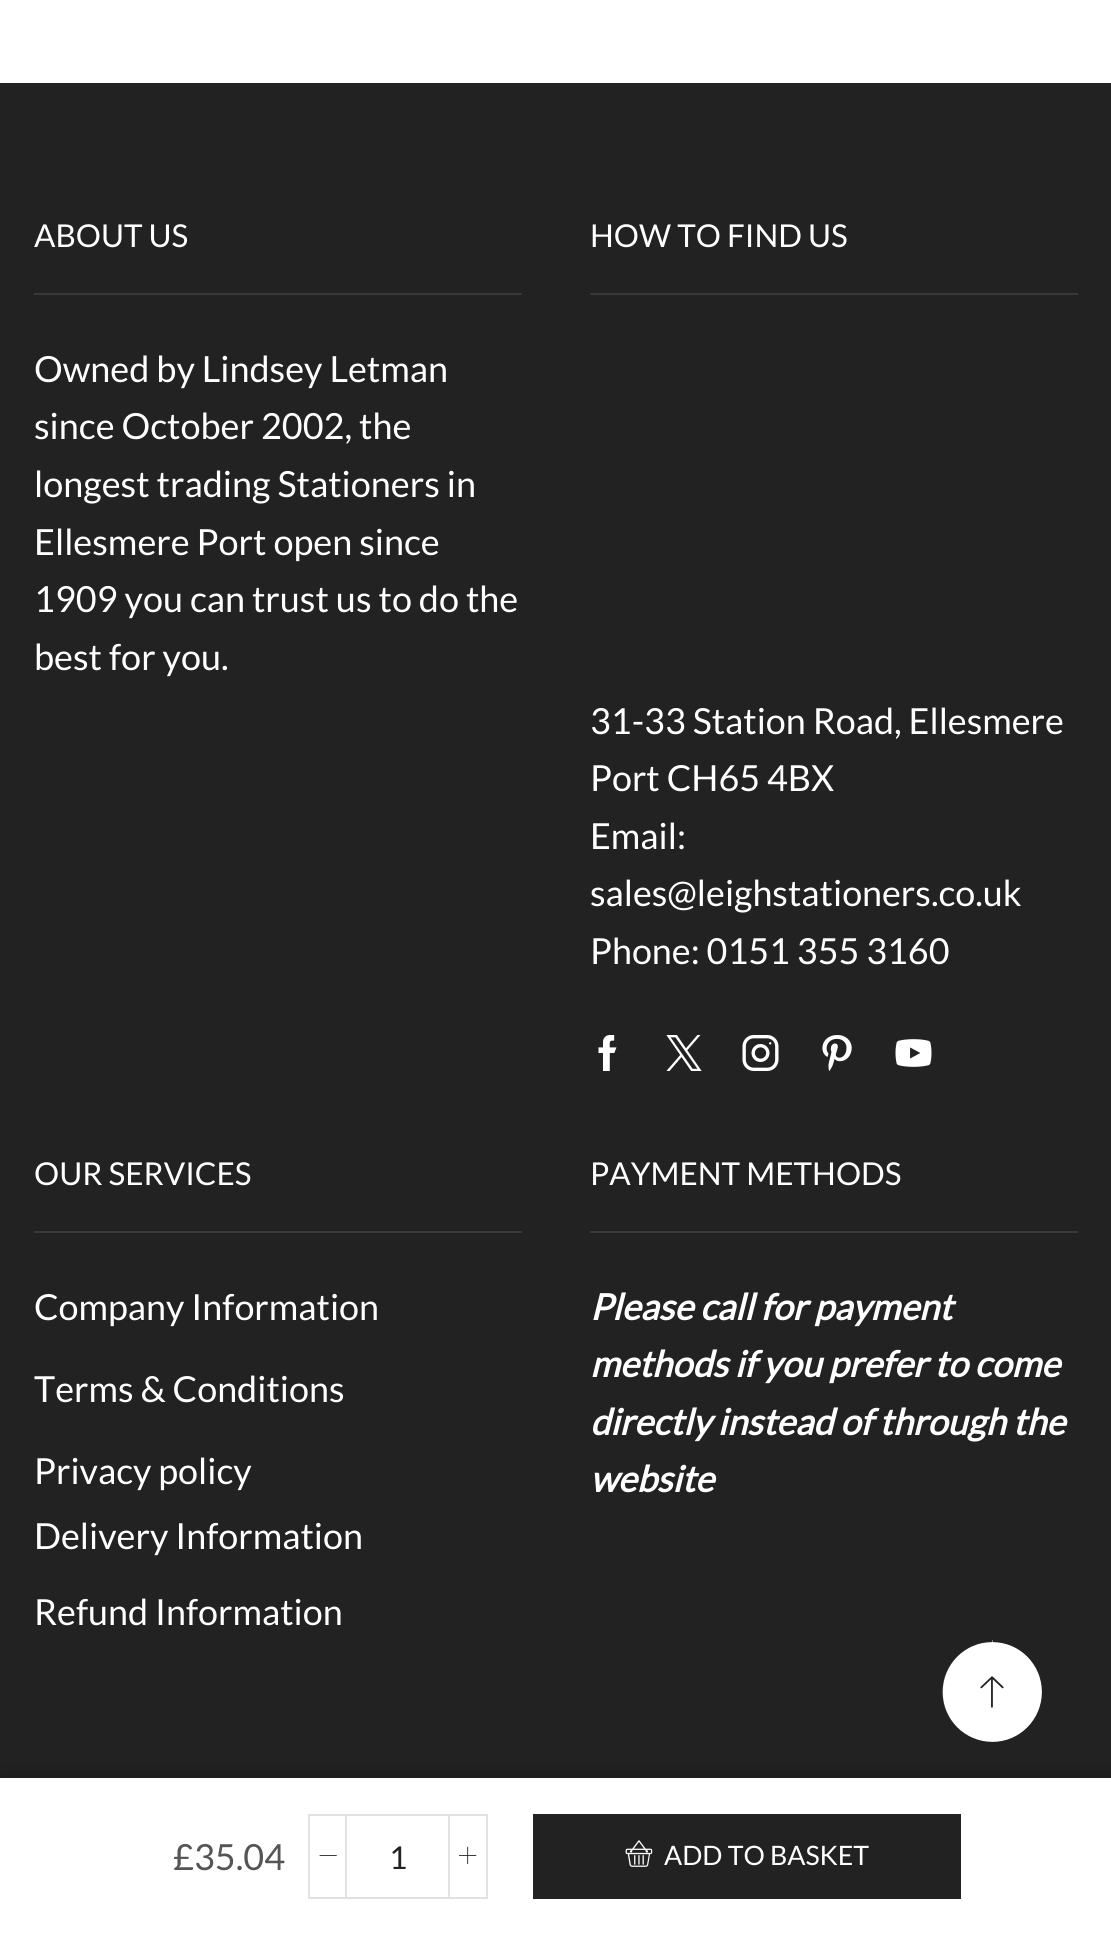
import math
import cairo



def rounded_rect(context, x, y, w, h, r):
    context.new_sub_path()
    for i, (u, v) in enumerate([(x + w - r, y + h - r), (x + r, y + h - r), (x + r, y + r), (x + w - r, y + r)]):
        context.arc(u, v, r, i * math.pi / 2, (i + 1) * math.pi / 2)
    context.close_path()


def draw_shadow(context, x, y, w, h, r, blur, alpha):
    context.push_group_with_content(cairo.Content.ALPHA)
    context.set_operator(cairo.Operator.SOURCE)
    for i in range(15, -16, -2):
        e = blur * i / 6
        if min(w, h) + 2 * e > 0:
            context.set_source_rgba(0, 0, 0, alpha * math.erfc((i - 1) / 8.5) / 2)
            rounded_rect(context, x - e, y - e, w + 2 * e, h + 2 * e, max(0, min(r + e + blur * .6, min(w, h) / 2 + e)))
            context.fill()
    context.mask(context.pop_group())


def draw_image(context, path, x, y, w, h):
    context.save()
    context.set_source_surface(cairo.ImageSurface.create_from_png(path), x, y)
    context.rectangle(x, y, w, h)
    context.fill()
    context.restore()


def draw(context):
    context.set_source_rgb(1, 1, 1)
    context.paint()
    context.set_source_rgb(34 / 255, 34 / 255, 34 / 255)
    context.rectangle(0, 83, 1111, 1695)
    context.fill()
    context.set_source_rgb(57 / 255, 57 / 255, 57 / 255)
    context.rectangle(34, 293, 488, 2)
    context.fill()
    context.rectangle(590, 293, 488, 2)
    context.fill()
    draw_image(context, "images/1.png", 598, 1035, 19, 36)
    draw_image(context, "images/2.png", 666, 1035, 36, 36)
    draw_image(context, "images/3.png", 742, 1035, 37, 36)
    draw_image(context, "images/4.png", 822, 1035, 30, 36)
    draw_image(context, "images/5.png", 895, 1039, 37, 28)
    context.rectangle(34, 1231, 488, 2)
    context.fill()
    context.rectangle(590, 1231, 488, 2)
    context.fill()
    context.set_source_rgb(1, 1, 1)
    rounded_rect(context, 942, 1641, 101, 102, 50.5)
    context.fill_preserve()
    context.set_source_rgb(225 / 255, 225 / 255, 225 / 255)
    context.stroke()
    context.save()
    context.rectangle(938, 1638, 108, 108)
    context.clip()
    context.new_path()
    context.move_to(992.5, 1640)
    context.curve_to(1021, 1640, 1044, 1663.5, 1044, 1692)
    context.curve_to(1044, 1720.5, 1021, 1744, 992.5, 1744)
    context.curve_to(963.5, 1744, 940.5, 1720.5, 940.5, 1692)
    context.curve_to(940.5, 1663.5, 963.5, 1640, 992, 1640)
    context.set_source_rgb(34 / 255, 34 / 255, 34 / 255)
    context.set_line_width(4.2)
    context.stroke()
    context.restore()
    draw_image(context, "images/6.png", 980, 1676, 24, 32)
    context.set_source_rgb(0, 0, 0)
    draw_shadow(context, 2, 1780, 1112, 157, 0, 11, 0.3)
    context.set_source_rgb(1, 1, 1)
    context.rectangle(0, 1778, 1111, 155)
    context.fill()
    context.rectangle(309, 1815, 37, 83)
    context.set_source_rgb(225 / 255, 225 / 255, 225 / 255)
    context.stroke()
    draw_image(context, "images/7.png", 319, 1855, 18, 1)
    context.rectangle(347, 1814, 101, 2)
    context.fill()
    context.rectangle(347, 1897, 101, 2)
    context.fill()
    context.rectangle(449, 1815, 38, 83)
    context.stroke()
    draw_image(context, "images/8.png", 459, 1846, 18, 19)
    context.set_source_rgb(34 / 255, 34 / 255, 34 / 255)
    context.rectangle(533, 1814, 428, 85)
    context.fill()
    draw_image(context, "images/9.png", 625, 1840, 28, 27)
    context.select_font_face("Lato")
    context.set_font_size(31.5)
    context.set_source_rgb(1, 1, 1)
    context.move_to(34, 247)
    context.show_text("ABOUT US")
    context.set_font_size(36)
    context.move_to(34, 382)
    context.show_text("Owned by Lindsey Letman")
    context.move_to(34, 439)
    context.show_text("since October 2002, the")
    context.move_to(34, 497)
    context.show_text("longest trading Stationers in")
    context.move_to(34, 555)
    context.show_text("Ellesmere Port open since")
    context.move_to(34, 612)
    context.show_text("1909 you can trust us to do the")
    context.move_to(34, 670)
    context.show_text("best for you.")
    context.set_font_size(31.5)
    context.move_to(590, 247)
    context.show_text("HOW TO FIND US")
    context.set_font_size(35.9)
    context.move_to(590, 734)
    context.show_text("31-33 Station Road, Ellesmere")
    context.move_to(590, 791)
    context.show_text("Port CH65 4BX")
    context.move_to(590, 849)
    context.show_text("Email:")
    context.move_to(590, 906)
    context.show_text("sales@leighstationers.co.uk")
    context.move_to(590, 964)
    context.show_text("Phone: 0151 355 3160")
    context.set_font_size(31.5)
    context.move_to(34, 1185)
    context.show_text("OUR SERVICES")
    context.set_font_size(35.9)
    context.move_to(34, 1320)
    context.show_text("Company Information")
    context.move_to(34, 1402)
    context.show_text("Terms & Conditions")
    context.move_to(34, 1484)
    context.show_text("Privacy policy")
    context.move_to(34, 1549)
    context.show_text("Delivery Information")
    context.move_to(34, 1625)
    context.show_text("Refund Information")
    context.set_font_size(31.5)
    context.move_to(590, 1185)
    context.show_text("PAYMENT METHODS")
    context.select_font_face("Lato", cairo.FontSlant.ITALIC, cairo.FontWeight.BOLD)
    context.set_font_size(36)
    context.move_to(590, 1320)
    context.show_text("Please call for payment")
    context.move_to(590, 1377)
    context.show_text("methods if you prefer to come")
    context.move_to(590, 1435)
    context.show_text("directly instead of through the")
    context.move_to(590, 1492)
    context.show_text("website")
    context.select_font_face("Lato")
    context.set_source_rgb(85 / 255, 85 / 255, 85 / 255)
    context.move_to(173, 1870)
    context.show_text("£35.04")
    context.set_font_size(31.5)
    context.set_source_rgb(34 / 255, 34 / 255, 34 / 255)
    context.move_to(389, 1869)
    context.show_text("1")
    context.set_font_size(26.75)
    context.set_source_rgb(1, 1, 1)
    context.move_to(664, 1865)
    context.show_text("ADD TO BASKET")


surface = cairo.ImageSurface(cairo.Format.RGB24, 1111, 1933)
context = cairo.Context(surface)
options = cairo.FontOptions()
options.set_hint_metrics(cairo.HintMetrics.OFF)
options.set_hint_style(cairo.HintStyle.NONE)
context.set_font_options(options)
context.set_miter_limit(4)
draw(context)
surface.write_to_png("out.png")
